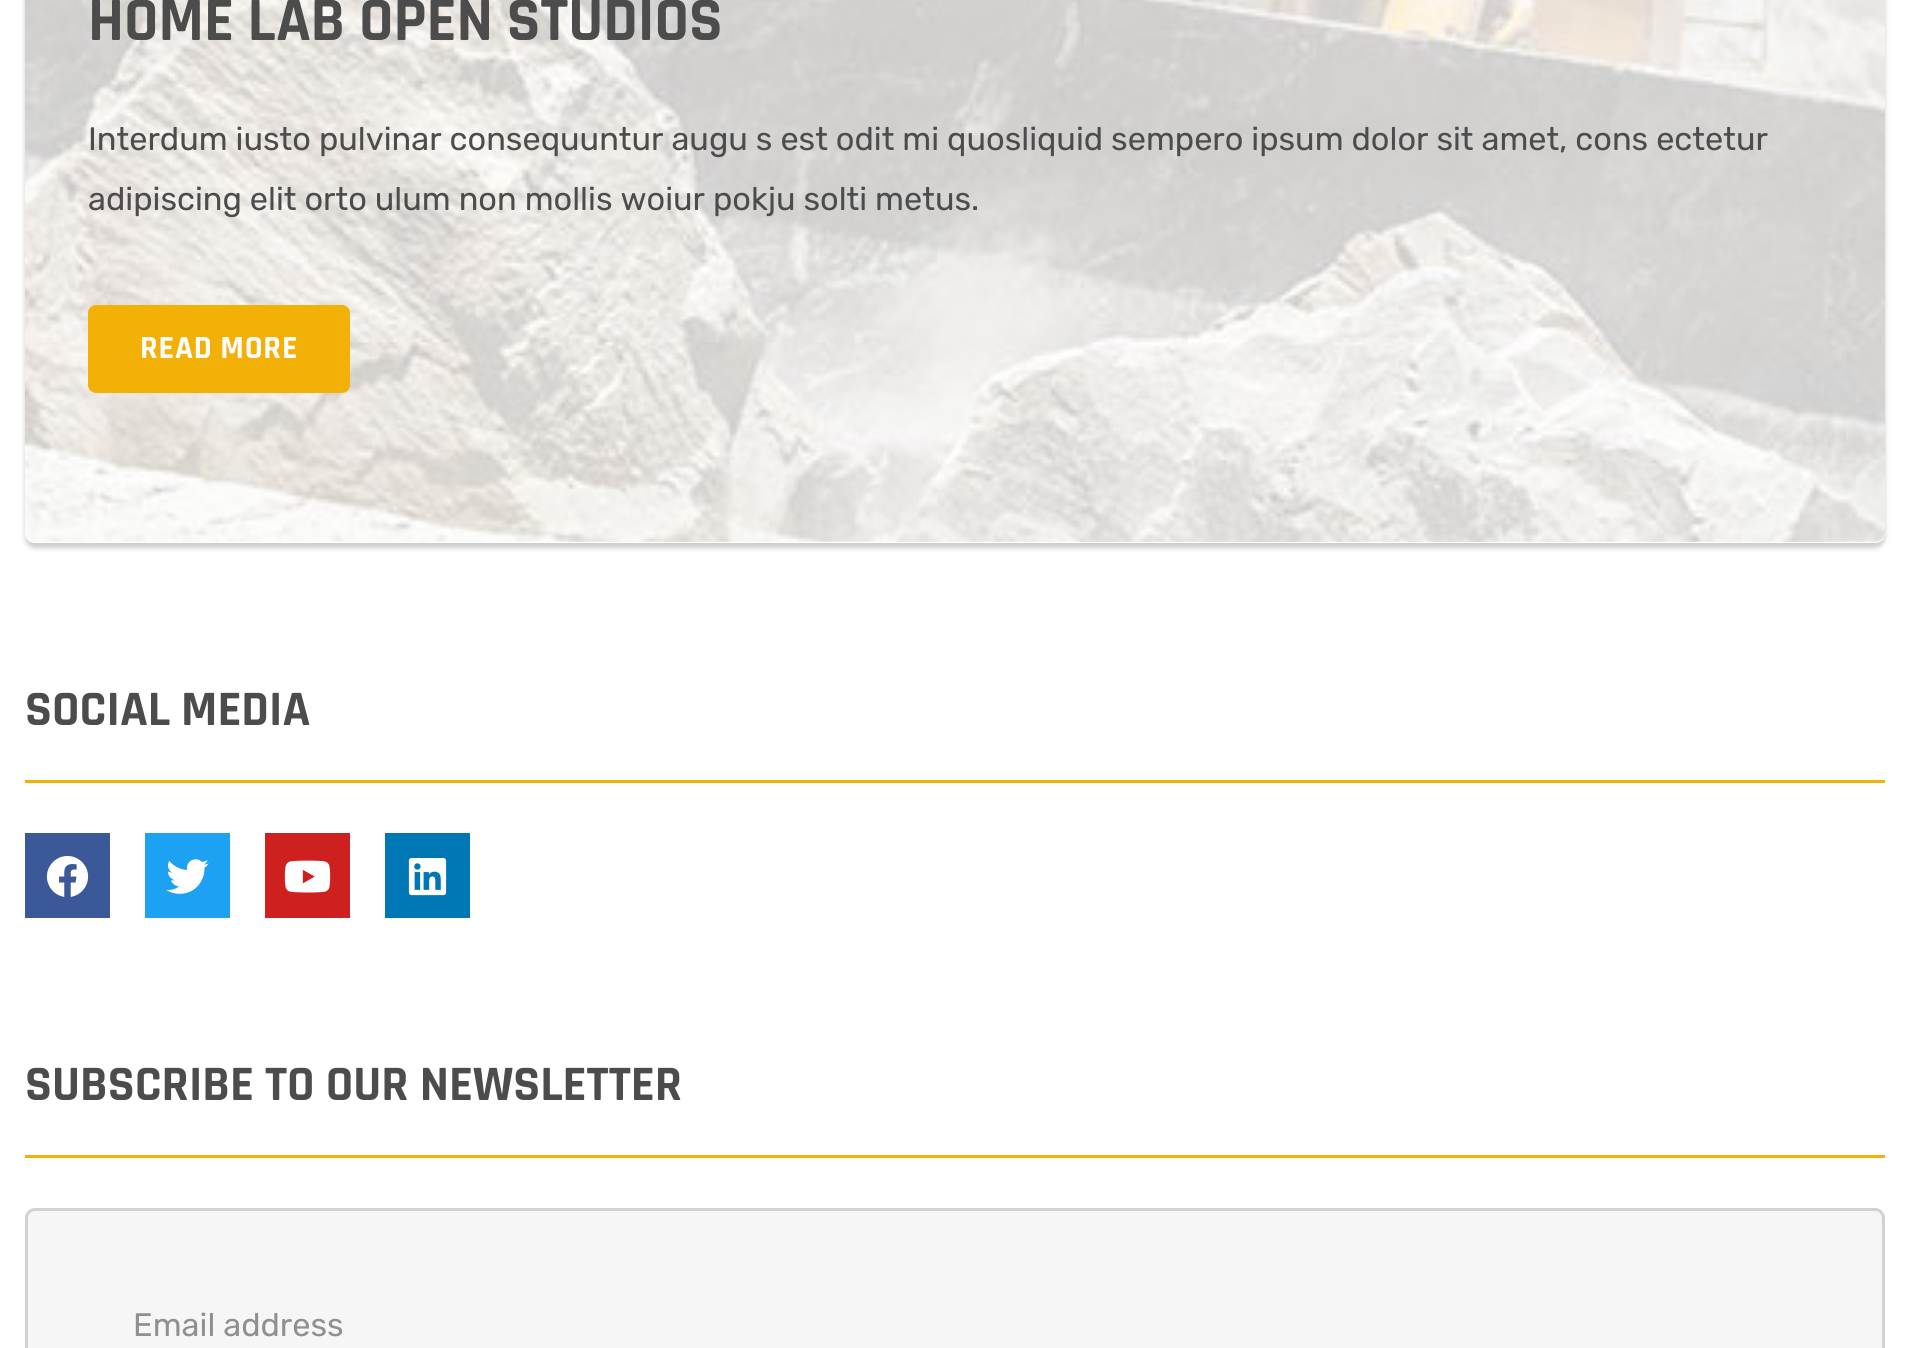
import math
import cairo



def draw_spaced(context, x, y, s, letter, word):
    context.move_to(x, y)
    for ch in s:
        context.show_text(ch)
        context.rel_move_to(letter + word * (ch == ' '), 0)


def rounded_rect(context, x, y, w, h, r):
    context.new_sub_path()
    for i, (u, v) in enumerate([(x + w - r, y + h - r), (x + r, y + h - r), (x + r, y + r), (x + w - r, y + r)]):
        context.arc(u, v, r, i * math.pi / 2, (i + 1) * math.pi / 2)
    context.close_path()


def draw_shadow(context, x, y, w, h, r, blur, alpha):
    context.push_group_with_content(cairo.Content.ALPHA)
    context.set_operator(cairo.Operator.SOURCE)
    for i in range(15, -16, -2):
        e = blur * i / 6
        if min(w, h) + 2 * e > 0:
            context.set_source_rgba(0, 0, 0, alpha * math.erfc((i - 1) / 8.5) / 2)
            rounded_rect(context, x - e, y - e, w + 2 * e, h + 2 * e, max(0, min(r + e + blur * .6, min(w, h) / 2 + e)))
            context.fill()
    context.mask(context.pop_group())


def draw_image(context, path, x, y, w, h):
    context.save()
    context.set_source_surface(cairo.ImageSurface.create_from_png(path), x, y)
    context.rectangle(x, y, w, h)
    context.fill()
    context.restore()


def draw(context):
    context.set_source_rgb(1, 1, 1)
    context.paint()
    context.save()
    context.set_fill_rule(cairo.FillRule.EVEN_ODD)
    context.new_path()
    context.move_to(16, 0)
    context.line_to(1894, 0)
    context.line_to(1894, 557)
    context.line_to(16, 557)
    context.close_path()
    context.move_to(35, -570)
    context.line_to(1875, -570)
    context.curve_to(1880.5, -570, 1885, -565.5, 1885, -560)
    context.line_to(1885, 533)
    context.curve_to(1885, 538.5, 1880.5, 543, 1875, 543)
    context.line_to(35, 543)
    context.curve_to(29.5, 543, 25, 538.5, 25, 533)
    context.line_to(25, -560)
    context.curve_to(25, -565.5, 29.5, -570, 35, -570)
    context.close_path()
    context.clip()
    context.set_source_rgb(0, 0, 0)
    draw_shadow(context, 25, -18, 1860, 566, 10, 2.5, 0.2)
    context.restore()
    draw_image(context, "images/1.png", 25, 0, 1860, 542)
    context.set_source_rgb(243 / 255, 176 / 255, 7 / 255)
    rounded_rect(context, 89.5, 306.5, 259, 85, 6.5)
    context.fill_preserve()
    context.set_line_width(3)
    context.stroke()
    context.rectangle(25, 780, 1860, 3)
    context.fill()
    context.set_source_rgb(59 / 255, 89 / 255, 152 / 255)
    context.rectangle(25, 833, 85, 85)
    context.fill()
    draw_image(context, "images/2.png", 46, 856, 43, 41)
    context.set_source_rgb(29 / 255, 161 / 255, 242 / 255)
    context.rectangle(145, 833, 85, 85)
    context.fill()
    draw_image(context, "images/3.png", 166, 859, 43, 35)
    context.set_source_rgb(205 / 255, 32 / 255, 31 / 255)
    context.rectangle(265, 833, 85, 85)
    context.fill()
    draw_image(context, "images/4.png", 284, 860, 47, 33)
    context.set_source_rgb(0, 119 / 255, 181 / 255)
    context.rectangle(385, 833, 85, 85)
    context.fill()
    draw_image(context, "images/5.png", 408, 858, 39, 38)
    context.set_source_rgb(243 / 255, 176 / 255, 7 / 255)
    context.rectangle(25, 1155, 1860, 3)
    context.fill()
    context.set_source_rgb(246 / 255, 246 / 255, 246 / 255)
    rounded_rect(context, 26.5, 1209.5, 1857, 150, 8.5)
    context.fill_preserve()
    context.set_source_rgb(210 / 255, 210 / 255, 210 / 255)
    context.stroke()
    context.select_font_face("Rajdhani", cairo.FontSlant.NORMAL, cairo.FontWeight.BOLD)
    context.set_font_size(62.5)
    context.set_source_rgb(76 / 255, 76 / 255, 76 / 255)
    context.move_to(88, 40)
    context.show_text("HOME LAB OPEN STUDIOS")
    context.select_font_face("Rubik")
    context.set_font_size(32.5)
    context.move_to(88, 150)
    context.show_text("Interdum iusto pulvinar consequuntur augu s est odit mi quosliquid sempero ipsum dolor sit amet, cons ectetur")
    context.move_to(88, 210)
    context.show_text("adipiscing elit orto ulum non mollis woiur pokju solti metus.")
    context.select_font_face("Rajdhani", cairo.FontSlant.NORMAL, cairo.FontWeight.BOLD)
    context.set_source_rgb(1, 1, 1)
    draw_spaced(context, 140, 358, "READ MORE", 0.75, 0)
    context.set_font_size(50)
    context.set_source_rgb(76 / 255, 76 / 255, 76 / 255)
    context.move_to(25, 725)
    context.show_text("SOCIAL MEDIA")
    context.move_to(25, 1100)
    context.show_text("SUBSCRIBE TO OUR NEWSLETTER")
    context.select_font_face("Rubik")
    context.set_font_size(32.5)
    context.set_source_rgb(144 / 255, 144 / 255, 144 / 255)
    context.move_to(133, 1336)
    context.show_text("Email address")


surface = cairo.ImageSurface(cairo.Format.RGB24, 1910, 1348)
context = cairo.Context(surface)
options = cairo.FontOptions()
options.set_hint_metrics(cairo.HintMetrics.OFF)
options.set_hint_style(cairo.HintStyle.NONE)
context.set_font_options(options)
context.set_miter_limit(4)
draw(context)
surface.write_to_png("out.png")
